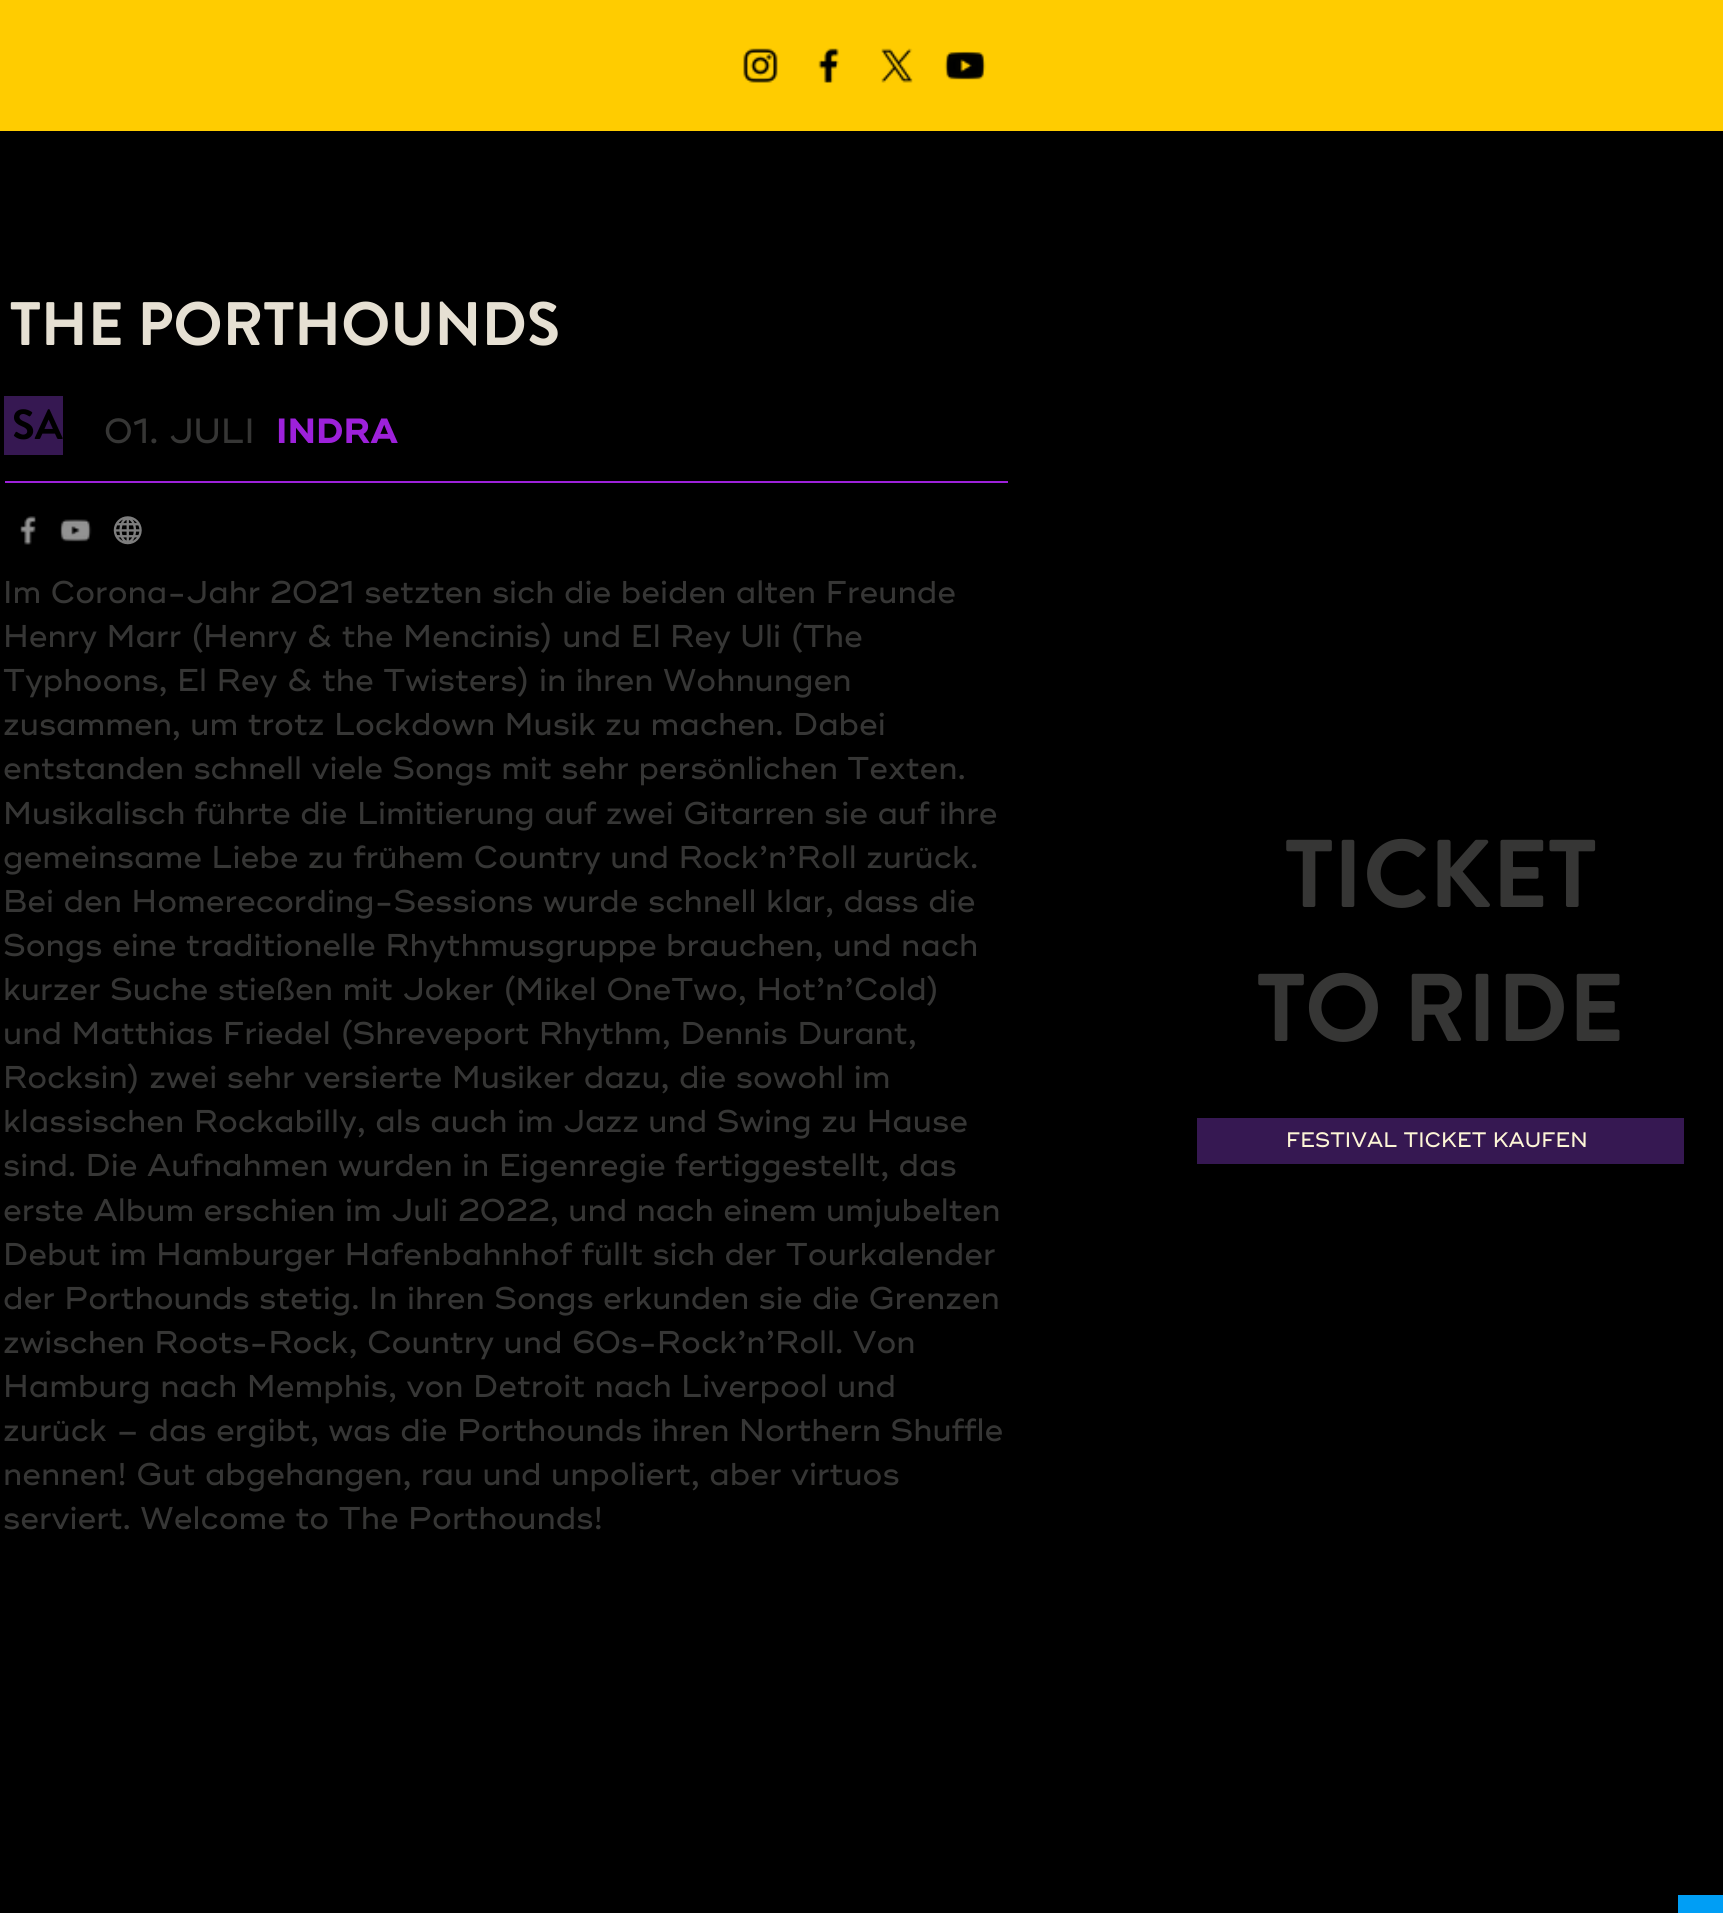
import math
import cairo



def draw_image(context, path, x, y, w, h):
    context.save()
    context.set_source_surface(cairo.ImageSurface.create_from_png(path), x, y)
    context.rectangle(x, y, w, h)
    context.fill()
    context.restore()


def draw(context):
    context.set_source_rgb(0, 0, 0)
    context.paint()
    context.set_source_rgb(1, 204 / 255, 0)
    context.rectangle(0, 0, 1723, 131)
    context.fill()
    draw_image(context, "images/1.png", 743, 48, 35, 35)
    draw_image(context, "images/2.png", 818, 48, 21, 35)
    draw_image(context, "images/3.png", 881, 48, 32, 35)
    draw_image(context, "images/4.png", 944, 51, 42, 29)
    context.set_source_rgb(54 / 255, 24 / 255, 82 / 255)
    context.rectangle(4, 396, 59, 59)
    context.fill()
    context.set_source_rgb(157 / 255, 33 / 255, 218 / 255)
    context.rectangle(5, 481, 1003, 2)
    context.fill()
    draw_image(context, "images/5.png", 20, 516, 16, 29)
    draw_image(context, "images/6.png", 60, 519, 32, 23)
    draw_image(context, "images/7.png", 113, 516, 29, 29)
    context.set_source_rgb(54 / 255, 24 / 255, 82 / 255)
    context.rectangle(1197, 1118, 487, 46)
    context.fill()
    context.set_source_rgb(0, 158 / 255, 245 / 255)
    context.rectangle(1678, 1895, 45, 18)
    context.fill()
    context.select_font_face("Brandon Grotesque", cairo.FontSlant.NORMAL, cairo.FontWeight.BOLD)
    context.set_font_size(61.25)
    context.set_source_rgb(230 / 255, 224 / 255, 211 / 255)
    context.move_to(10, 345)
    context.show_text("THE PORTHOUNDS")
    context.set_font_size(42)
    context.set_source_rgb(0, 0, 0)
    context.move_to(12, 439)
    context.show_text("SA")
    context.select_font_face("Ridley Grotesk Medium")
    context.set_font_size(35)
    context.set_source_rgb(54 / 255, 54 / 255, 53 / 255)
    context.move_to(104, 443)
    context.show_text("01. JULI")
    context.select_font_face("Ridley Grotesk", cairo.FontSlant.NORMAL, cairo.FontWeight.BOLD)
    context.set_source_rgb(157 / 255, 33 / 255, 218 / 255)
    context.move_to(276, 443)
    context.show_text("INDRA")
    context.select_font_face("Ridley Grotesk Medium")
    context.set_font_size(31.5)
    context.set_source_rgb(54 / 255, 54 / 255, 53 / 255)
    context.move_to(3, 603)
    context.show_text("Im Corona-Jahr 2021 setzten sich die beiden alten Freunde")
    context.move_to(3, 647)
    context.show_text("Henry Marr (Henry & the Mencinis) und El Rey Uli (The")
    context.move_to(3, 691)
    context.show_text("Typhoons, El Rey & the Twisters) in ihren Wohnungen")
    context.move_to(3, 735)
    context.show_text("zusammen, um trotz Lockdown Musik zu machen. Dabei")
    context.move_to(3, 779)
    context.show_text("entstanden schnell viele Songs mit sehr persönlichen Texten.")
    context.move_to(3, 824)
    context.show_text("Musikalisch führte die Limitierung auf zwei Gitarren sie auf ihre")
    context.move_to(3, 868)
    context.show_text("gemeinsame Liebe zu frühem Country und Rock’n’Roll zurück.")
    context.move_to(3, 912)
    context.show_text("Bei den Homerecording-Sessions wurde schnell klar, dass die")
    context.move_to(3, 956)
    context.show_text("Songs eine traditionelle Rhythmusgruppe brauchen, und nach")
    context.move_to(3, 1000)
    context.show_text("kurzer Suche stießen mit Joker (Mikel OneTwo, Hot’n’Cold)")
    context.move_to(3, 1044)
    context.show_text("und Matthias Friedel (Shreveport Rhythm, Dennis Durant,")
    context.move_to(3, 1088)
    context.show_text("Rocksin) zwei sehr versierte Musiker dazu, die sowohl im")
    context.move_to(3, 1132)
    context.show_text("klassischen Rockabilly, als auch im Jazz und Swing zu Hause")
    context.move_to(3, 1176)
    context.show_text("sind. Die Aufnahmen wurden in Eigenregie fertiggestellt, das")
    context.move_to(3, 1221)
    context.show_text("erste Album erschien im Juli 2022, und nach einem umjubelten")
    context.move_to(3, 1265)
    context.show_text("Debut im Hamburger Hafenbahnhof füllt sich der Tourkalender")
    context.move_to(3, 1309)
    context.show_text("der Porthounds stetig. In ihren Songs erkunden sie die Grenzen")
    context.move_to(3, 1353)
    context.show_text("zwischen Roots-Rock, Country und 60s-Rock’n’Roll. Von")
    context.move_to(3, 1397)
    context.show_text("Hamburg nach Memphis, von Detroit nach Liverpool und")
    context.move_to(3, 1441)
    context.show_text("zurück – das ergibt, was die Porthounds ihren Northern Shuffle")
    context.move_to(3, 1485)
    context.show_text("nennen! Gut abgehangen, rau und unpoliert, aber virtuos")
    context.move_to(3, 1529)
    context.show_text("serviert. Welcome to The Porthounds!")
    context.select_font_face("Brandon Grotesque", cairo.FontSlant.NORMAL, cairo.FontWeight.BOLD)
    context.set_font_size(96)
    context.move_to(1285, 907)
    context.show_text("TICKET")
    context.move_to(1257, 1041)
    context.show_text("TO RIDE")
    context.select_font_face("Ridley Grotesk Medium")
    context.set_font_size(21)
    context.set_source_rgb(253 / 255, 245 / 255, 214 / 255)
    context.move_to(1286, 1147)
    context.show_text("FESTIVAL TICKET KAUFEN")


surface = cairo.ImageSurface(cairo.Format.RGB24, 1723, 1913)
context = cairo.Context(surface)
options = cairo.FontOptions()
options.set_hint_metrics(cairo.HintMetrics.OFF)
options.set_hint_style(cairo.HintStyle.NONE)
context.set_font_options(options)
context.set_miter_limit(4)
draw(context)
surface.write_to_png("out.png")
